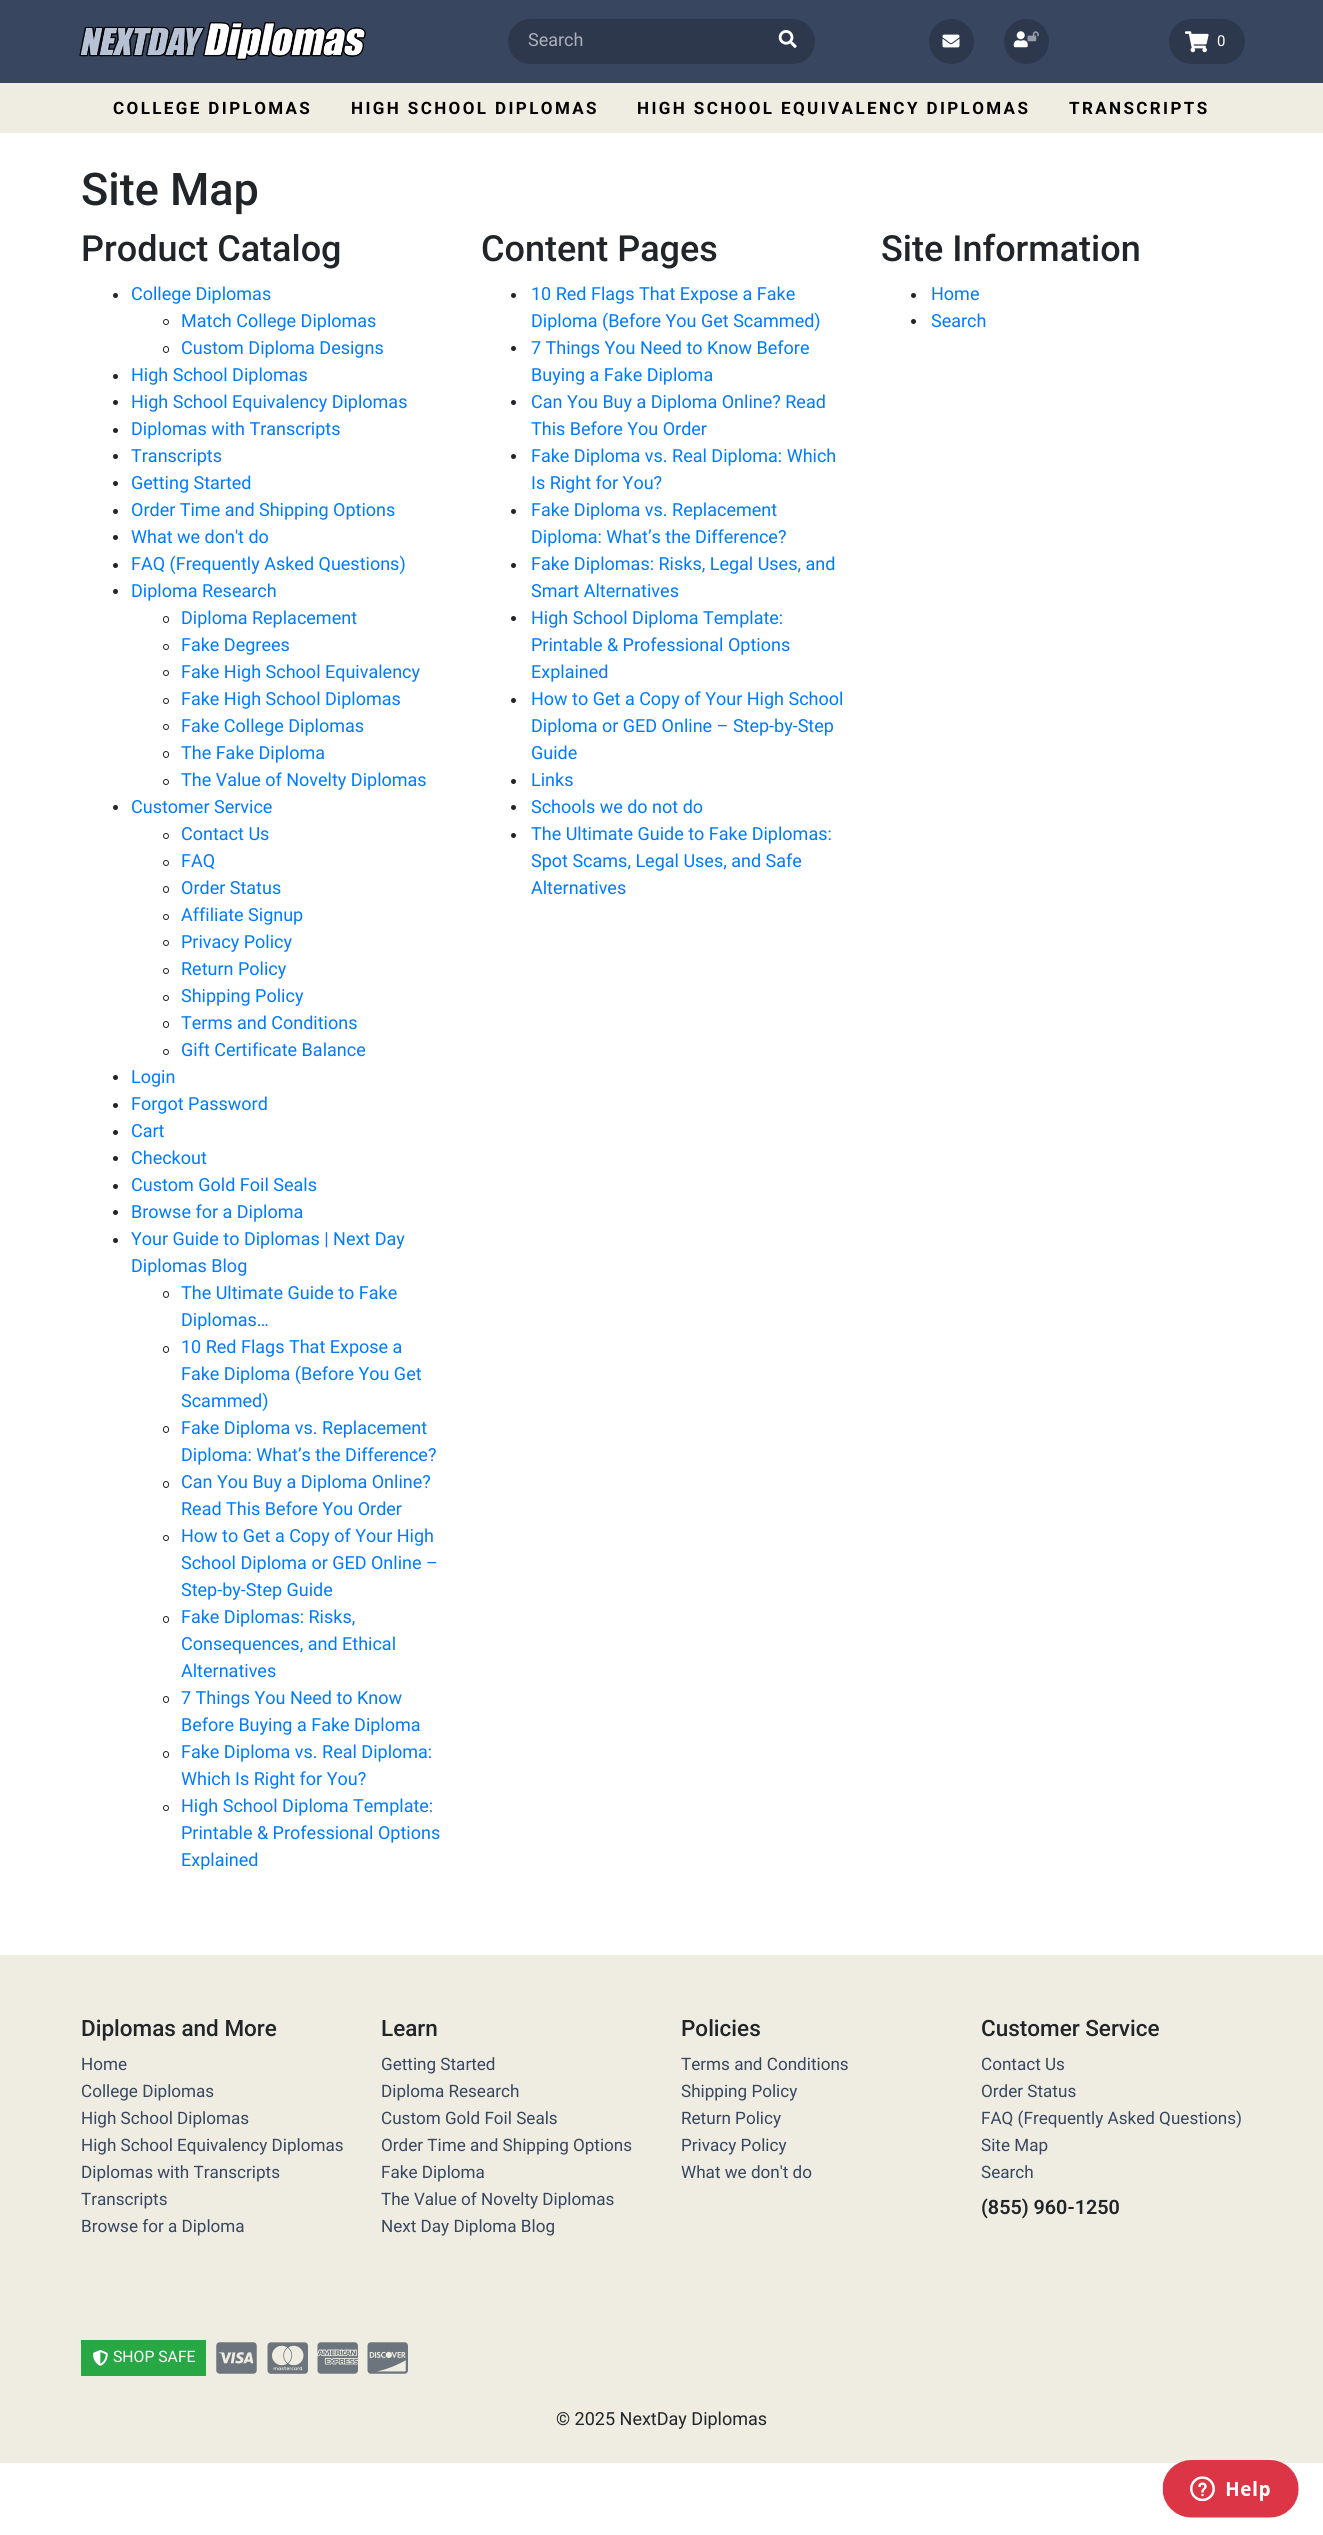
import math
import cairo



def draw_spaced(context, x, y, s, letter, word):
    context.move_to(x, y)
    for ch in s:
        context.show_text(ch)
        context.rel_move_to(letter + word * (ch == ' '), 0)


def rounded_rect(context, x, y, w, h, r):
    context.new_sub_path()
    for i, (u, v) in enumerate([(x + w - r, y + h - r), (x + r, y + h - r), (x + r, y + r), (x + w - r, y + r)]):
        context.arc(u, v, r, i * math.pi / 2, (i + 1) * math.pi / 2)
    context.close_path()


def draw_image(context, path, x, y, w, h):
    context.save()
    context.set_source_surface(cairo.ImageSurface.create_from_png(path), x, y)
    context.rectangle(x, y, w, h)
    context.fill()
    context.restore()


def draw(context):
    context.set_source_rgb(1, 1, 1)
    context.paint()
    context.set_source_rgb(56 / 255, 70 / 255, 96 / 255)
    context.rectangle(0, 0, 1323, 83)
    context.fill()
    draw_image(context, "images/1.png", 79, 22, 287, 38)
    context.set_source_rgb(45 / 255, 56 / 255, 77 / 255)
    rounded_rect(context, 508, 19, 307, 45, 22.5)
    context.fill()
    draw_image(context, "images/2.png", 778, 30, 19, 18)
    context.arc(951.5, 41.5, 22.5, 0, 2 * math.pi)
    context.fill()
    draw_image(context, "images/3.png", 942, 34, 18, 14)
    context.arc(1026.5, 41.5, 22.5, 0, 2 * math.pi)
    context.fill()
    draw_image(context, "images/4.png", 1013, 31, 15, 17)
    draw_image(context, "images/5.png", 1027, 31, 12, 11)
    rounded_rect(context, 1169, 19, 76, 45, 22.5)
    context.fill()
    draw_image(context, "images/6.png", 1185, 31, 24, 22)
    context.set_source_rgb(239 / 255, 237 / 255, 226 / 255)
    context.rectangle(0, 83, 1323, 50)
    context.fill()
    context.set_source_rgb(33 / 255, 37 / 255, 41 / 255)
    context.arc(115.5, 295.5, 2.5, 0, 2 * math.pi)
    context.fill()
    context.arc(166, 322, 2.5, 0, 2 * math.pi)
    context.set_line_width(1)
    context.stroke()
    rounded_rect(context, 163.5, 346.5, 5, 6, 2.5)
    context.stroke()
    context.arc(115.5, 376.5, 2.5, 0, 2 * math.pi)
    context.fill()
    context.arc(115.5, 402.5, 2.5, 0, 2 * math.pi)
    context.fill()
    context.arc(115.5, 430.5, 2.5, 0, 2 * math.pi)
    context.fill()
    context.arc(115.5, 456.5, 2.5, 0, 2 * math.pi)
    context.fill()
    context.arc(115.5, 483.5, 2.5, 0, 2 * math.pi)
    context.fill()
    context.arc(115.5, 511.5, 2.5, 0, 2 * math.pi)
    context.fill()
    context.arc(115.5, 537.5, 2.5, 0, 2 * math.pi)
    context.fill()
    context.arc(115.5, 565.5, 2.5, 0, 2 * math.pi)
    context.fill()
    context.arc(115.5, 591.5, 2.5, 0, 2 * math.pi)
    context.fill()
    rounded_rect(context, 163.5, 616.5, 5, 6, 2.5)
    context.stroke()
    context.arc(166, 647, 2.5, 0, 2 * math.pi)
    context.stroke()
    context.arc(166, 673, 2.5, 0, 2 * math.pi)
    context.stroke()
    context.arc(166, 701, 2.5, 0, 2 * math.pi)
    context.stroke()
    context.arc(166, 727, 2.5, 0, 2 * math.pi)
    context.stroke()
    rounded_rect(context, 163.5, 751.5, 5, 6, 2.5)
    context.stroke()
    context.arc(166, 782, 2.5, 0, 2 * math.pi)
    context.stroke()
    context.arc(115.5, 807.5, 2.5, 0, 2 * math.pi)
    context.fill()
    context.arc(166, 836, 2.5, 0, 2 * math.pi)
    context.stroke()
    context.arc(166, 863, 2.5, 0, 2 * math.pi)
    context.stroke()
    rounded_rect(context, 163.5, 886.5, 5, 6, 2.5)
    context.stroke()
    context.arc(166, 917, 2.5, 0, 2 * math.pi)
    context.stroke()
    context.arc(166, 943, 2.5, 0, 2 * math.pi)
    context.stroke()
    context.arc(166, 971, 2.5, 0, 2 * math.pi)
    context.stroke()
    context.arc(166, 998, 2.5, 0, 2 * math.pi)
    context.stroke()
    rounded_rect(context, 163.5, 1021.5, 5, 6, 2.5)
    context.stroke()
    context.arc(166, 1052, 2.5, 0, 2 * math.pi)
    context.stroke()
    context.arc(115.5, 1077.5, 2.5, 0, 2 * math.pi)
    context.fill()
    context.arc(115.5, 1105.5, 2.5, 0, 2 * math.pi)
    context.fill()
    context.arc(115.5, 1132.5, 2.5, 0, 2 * math.pi)
    context.fill()
    context.arc(115.5, 1158.5, 2.5, 0, 2 * math.pi)
    context.fill()
    context.arc(115.5, 1186.5, 2.5, 0, 2 * math.pi)
    context.fill()
    context.arc(115.5, 1212.5, 2.5, 0, 2 * math.pi)
    context.fill()
    context.arc(115.5, 1240.5, 2.5, 0, 2 * math.pi)
    context.fill()
    rounded_rect(context, 163.5, 1291.5, 5, 6, 2.5)
    context.stroke()
    rounded_rect(context, 163.5, 1346.5, 5, 6, 2.5)
    context.stroke()
    rounded_rect(context, 163.5, 1426.5, 5, 6, 2.5)
    context.stroke()
    rounded_rect(context, 163.5, 1481.5, 5, 6, 2.5)
    context.stroke()
    context.arc(166, 1538, 2.5, 0, 2 * math.pi)
    context.stroke()
    rounded_rect(context, 163.5, 1616.5, 5, 6, 2.5)
    context.stroke()
    rounded_rect(context, 163.5, 1696.5, 5, 6, 2.5)
    context.stroke()
    rounded_rect(context, 163.5, 1751.5, 5, 6, 2.5)
    context.stroke()
    context.arc(166, 1808, 2.5, 0, 2 * math.pi)
    context.stroke()
    context.arc(513.5, 295.5, 2.5, 0, 2 * math.pi)
    context.fill()
    context.arc(513.5, 348.5, 2.5, 0, 2 * math.pi)
    context.fill()
    context.arc(513.5, 402.5, 2.5, 0, 2 * math.pi)
    context.fill()
    context.arc(513.5, 456.5, 2.5, 0, 2 * math.pi)
    context.fill()
    context.arc(513.5, 511.5, 2.5, 0, 2 * math.pi)
    context.fill()
    context.arc(513.5, 565.5, 2.5, 0, 2 * math.pi)
    context.fill()
    context.arc(513.5, 618.5, 2.5, 0, 2 * math.pi)
    context.fill()
    context.arc(513.5, 700.5, 2.5, 0, 2 * math.pi)
    context.fill()
    context.arc(513.5, 781.5, 2.5, 0, 2 * math.pi)
    context.fill()
    context.arc(513.5, 807.5, 2.5, 0, 2 * math.pi)
    context.fill()
    context.arc(513.5, 835.5, 2.5, 0, 2 * math.pi)
    context.fill()
    context.arc(913.5, 295.5, 2.5, 0, 2 * math.pi)
    context.fill()
    context.arc(913.5, 321.5, 2.5, 0, 2 * math.pi)
    context.fill()
    context.set_source_rgb(239 / 255, 237 / 255, 226 / 255)
    context.rectangle(0, 1955, 1323, 508)
    context.fill()
    context.set_source_rgb(40 / 255, 167 / 255, 69 / 255)
    context.rectangle(81, 2340, 125, 36)
    context.fill()
    draw_image(context, "images/7.png", 93, 2350, 15, 16)
    draw_image(context, "images/8.png", 216, 2342, 41, 32)
    draw_image(context, "images/9.png", 267, 2342, 41, 32)
    draw_image(context, "images/10.png", 317, 2342, 41, 32)
    draw_image(context, "images/11.png", 367, 2342, 41, 32)
    draw_image(context, "images/12.png", 1162, 2460, 137, 58)
    context.select_font_face("Roboto")
    context.set_font_size(18)
    context.set_source_rgb(171 / 255, 175 / 255, 184 / 255)
    context.move_to(528, 46)
    context.show_text("Search")
    context.set_font_size(15)
    context.set_source_rgb(1, 1, 1)
    context.move_to(1217, 46)
    context.show_text("0")
    context.select_font_face("Roboto", cairo.FontSlant.NORMAL, cairo.FontWeight.BOLD)
    context.set_font_size(17)
    context.set_source_rgb(0, 0, 0)
    draw_spaced(context, 113, 114, "COLLEGE DIPLOMAS", 2.4, 0)
    draw_spaced(context, 351, 114, "HIGH SCHOOL DIPLOMAS", 2.4, 0)
    draw_spaced(context, 637, 114, "HIGH SCHOOL EQUIVALENCY DIPLOMAS", 2.4, 0)
    draw_spaced(context, 1069, 114, "TRANSCRIPTS", 2.4, 0)
    context.select_font_face("Roboto Medium")
    context.set_font_size(45)
    context.set_source_rgb(33 / 255, 37 / 255, 41 / 255)
    context.move_to(81, 205)
    context.show_text("Site Map")
    context.set_font_size(36)
    context.move_to(81, 261)
    context.show_text("Product Catalog")
    context.select_font_face("Roboto")
    context.set_font_size(18)
    context.set_source_rgb(0, 123 / 255, 1)
    context.move_to(131, 300)
    context.show_text("College Diplomas")
    context.move_to(181, 327)
    context.show_text("Match College Diplomas")
    context.move_to(181, 354)
    context.show_text("Custom Diploma Designs")
    context.move_to(131, 381)
    context.show_text("High School Diplomas")
    context.move_to(131, 408)
    context.show_text("High School Equivalency Diplomas")
    context.move_to(131, 435)
    context.show_text("Diplomas with Transcripts")
    context.move_to(131, 462)
    context.show_text("Transcripts")
    context.move_to(131, 489)
    context.show_text("Getting Started")
    context.move_to(131, 516)
    context.show_text("Order Time and Shipping Options")
    context.move_to(131, 543)
    context.show_text("What we don't do")
    context.move_to(131, 570)
    context.show_text("FAQ (Frequently Asked Questions)")
    context.move_to(131, 597)
    context.show_text("Diploma Research")
    context.move_to(181, 624)
    context.show_text("Diploma Replacement")
    context.move_to(181, 651)
    context.show_text("Fake Degrees")
    context.move_to(181, 678)
    context.show_text("Fake High School Equivalency")
    context.move_to(181, 705)
    context.show_text("Fake High School Diplomas")
    context.move_to(181, 732)
    context.show_text("Fake College Diplomas")
    context.move_to(181, 759)
    context.show_text("The Fake Diploma")
    context.move_to(181, 786)
    context.show_text("The Value of Novelty Diplomas")
    context.move_to(131, 813)
    context.show_text("Customer Service")
    context.move_to(181, 840)
    context.show_text("Contact Us")
    context.move_to(181, 867)
    context.show_text("FAQ")
    context.move_to(181, 894)
    context.show_text("Order Status")
    context.move_to(181, 921)
    context.show_text("Affiliate Signup")
    context.move_to(181, 948)
    context.show_text("Privacy Policy")
    context.move_to(181, 975)
    context.show_text("Return Policy")
    context.move_to(181, 1002)
    context.show_text("Shipping Policy")
    context.move_to(181, 1029)
    context.show_text("Terms and Conditions")
    context.move_to(181, 1056)
    context.show_text("Gift Certificate Balance")
    context.move_to(131, 1083)
    context.show_text("Login")
    context.move_to(131, 1110)
    context.show_text("Forgot Password")
    context.move_to(131, 1137)
    context.show_text("Cart")
    context.move_to(131, 1164)
    context.show_text("Checkout")
    context.move_to(131, 1191)
    context.show_text("Custom Gold Foil Seals")
    context.move_to(131, 1218)
    context.show_text("Browse for a Diploma")
    context.move_to(131, 1245)
    context.show_text("Your Guide to Diplomas | Next Day")
    context.move_to(131, 1272)
    context.show_text("Diplomas Blog")
    context.move_to(181, 1299)
    context.show_text("The Ultimate Guide to Fake")
    context.move_to(181, 1326)
    context.show_text("Diplomas…")
    context.move_to(181, 1353)
    context.show_text("10 Red Flags That Expose a")
    context.move_to(181, 1380)
    context.show_text("Fake Diploma (Before You Get")
    context.move_to(181, 1407)
    context.show_text("Scammed)")
    context.move_to(181, 1434)
    context.show_text("Fake Diploma vs. Replacement")
    context.move_to(181, 1461)
    context.show_text("Diploma: What’s the Difference?")
    context.move_to(181, 1488)
    context.show_text("Can You Buy a Diploma Online?")
    context.move_to(181, 1515)
    context.show_text("Read This Before You Order")
    context.move_to(181, 1542)
    context.show_text("How to Get a Copy of Your High")
    context.move_to(181, 1569)
    context.show_text("School Diploma or GED Online –")
    context.move_to(181, 1596)
    context.show_text("Step-by-Step Guide")
    context.move_to(181, 1623)
    context.show_text("Fake Diplomas: Risks,")
    context.move_to(181, 1650)
    context.show_text("Consequences, and Ethical")
    context.move_to(181, 1677)
    context.show_text("Alternatives")
    context.move_to(181, 1704)
    context.show_text("7 Things You Need to Know")
    context.move_to(181, 1731)
    context.show_text("Before Buying a Fake Diploma")
    context.move_to(181, 1758)
    context.show_text("Fake Diploma vs. Real Diploma:")
    context.move_to(181, 1785)
    context.show_text("Which Is Right for You?")
    context.move_to(181, 1812)
    context.show_text("High School Diploma Template:")
    context.move_to(181, 1839)
    context.show_text("Printable & Professional Options")
    context.move_to(181, 1866)
    context.show_text("Explained")
    context.select_font_face("Roboto Medium")
    context.set_font_size(36)
    context.set_source_rgb(33 / 255, 37 / 255, 41 / 255)
    context.move_to(481, 261)
    context.show_text("Content Pages")
    context.select_font_face("Roboto")
    context.set_font_size(18)
    context.set_source_rgb(0, 123 / 255, 1)
    context.move_to(531, 300)
    context.show_text("10 Red Flags That Expose a Fake")
    context.move_to(531, 327)
    context.show_text("Diploma (Before You Get Scammed)")
    context.move_to(531, 354)
    context.show_text("7 Things You Need to Know Before")
    context.move_to(531, 381)
    context.show_text("Buying a Fake Diploma")
    context.move_to(531, 408)
    context.show_text("Can You Buy a Diploma Online? Read")
    context.move_to(531, 435)
    context.show_text("This Before You Order")
    context.move_to(531, 462)
    context.show_text("Fake Diploma vs. Real Diploma: Which")
    context.move_to(531, 489)
    context.show_text("Is Right for You?")
    context.move_to(531, 516)
    context.show_text("Fake Diploma vs. Replacement")
    context.move_to(531, 543)
    context.show_text("Diploma: What’s the Difference?")
    context.move_to(531, 570)
    context.show_text("Fake Diplomas: Risks, Legal Uses, and")
    context.move_to(531, 597)
    context.show_text("Smart Alternatives")
    context.move_to(531, 624)
    context.show_text("High School Diploma Template:")
    context.move_to(531, 651)
    context.show_text("Printable & Professional Options")
    context.move_to(531, 678)
    context.show_text("Explained")
    context.move_to(531, 705)
    context.show_text("How to Get a Copy of Your High School")
    context.move_to(531, 732)
    context.show_text("Diploma or GED Online – Step-by-Step")
    context.move_to(531, 759)
    context.show_text("Guide")
    context.move_to(531, 786)
    context.show_text("Links")
    context.move_to(531, 813)
    context.show_text("Schools we do not do")
    context.move_to(531, 840)
    context.show_text("The Ultimate Guide to Fake Diplomas:")
    context.move_to(531, 867)
    context.show_text("Spot Scams, Legal Uses, and Safe")
    context.move_to(531, 894)
    context.show_text("Alternatives")
    context.select_font_face("Roboto Medium")
    context.set_font_size(36)
    context.set_source_rgb(33 / 255, 37 / 255, 41 / 255)
    context.move_to(881, 261)
    context.show_text("Site Information")
    context.select_font_face("Roboto")
    context.set_font_size(18)
    context.set_source_rgb(0, 123 / 255, 1)
    context.move_to(931, 300)
    context.show_text("Home")
    context.move_to(931, 327)
    context.show_text("Search")
    context.select_font_face("Roboto Medium")
    context.set_font_size(22.5)
    context.set_source_rgb(33 / 255, 37 / 255, 41 / 255)
    context.move_to(81, 2036)
    context.show_text("Diplomas and More")
    context.select_font_face("Roboto")
    context.set_font_size(17.1)
    context.set_source_rgb(56 / 255, 70 / 255, 96 / 255)
    context.move_to(81, 2070)
    context.show_text("Home")
    context.move_to(81, 2097)
    context.show_text("College Diplomas")
    context.move_to(81, 2124)
    context.show_text("High School Diplomas")
    context.move_to(81, 2151)
    context.show_text("High School Equivalency Diplomas")
    context.move_to(81, 2178)
    context.show_text("Diplomas with Transcripts")
    context.move_to(81, 2205)
    context.show_text("Transcripts")
    context.move_to(81, 2232)
    context.show_text("Browse for a Diploma")
    context.select_font_face("Roboto Medium")
    context.set_font_size(22.5)
    context.set_source_rgb(33 / 255, 37 / 255, 41 / 255)
    context.move_to(381, 2036)
    context.show_text("Learn")
    context.select_font_face("Roboto")
    context.set_font_size(17.1)
    context.set_source_rgb(56 / 255, 70 / 255, 96 / 255)
    context.move_to(381, 2070)
    context.show_text("Getting Started")
    context.move_to(381, 2097)
    context.show_text("Diploma Research")
    context.move_to(381, 2124)
    context.show_text("Custom Gold Foil Seals")
    context.move_to(381, 2151)
    context.show_text("Order Time and Shipping Options")
    context.move_to(381, 2178)
    context.show_text("Fake Diploma")
    context.move_to(381, 2205)
    context.show_text("The Value of Novelty Diplomas")
    context.move_to(381, 2232)
    context.show_text("Next Day Diploma Blog")
    context.select_font_face("Roboto Medium")
    context.set_font_size(22.5)
    context.set_source_rgb(33 / 255, 37 / 255, 41 / 255)
    context.move_to(681, 2036)
    context.show_text("Policies")
    context.select_font_face("Roboto")
    context.set_font_size(17.1)
    context.set_source_rgb(56 / 255, 70 / 255, 96 / 255)
    context.move_to(681, 2070)
    context.show_text("Terms and Conditions")
    context.move_to(681, 2097)
    context.show_text("Shipping Policy")
    context.move_to(681, 2124)
    context.show_text("Return Policy")
    context.move_to(681, 2151)
    context.show_text("Privacy Policy")
    context.move_to(681, 2178)
    context.show_text("What we don't do")
    context.select_font_face("Roboto Medium")
    context.set_font_size(22.5)
    context.set_source_rgb(33 / 255, 37 / 255, 41 / 255)
    context.move_to(981, 2036)
    context.show_text("Customer Service")
    context.select_font_face("Roboto")
    context.set_font_size(17.1)
    context.set_source_rgb(56 / 255, 70 / 255, 96 / 255)
    context.move_to(981, 2070)
    context.show_text("Contact Us")
    context.move_to(981, 2097)
    context.show_text("Order Status")
    context.move_to(981, 2124)
    context.show_text("FAQ (Frequently Asked Questions)")
    context.move_to(981, 2151)
    context.show_text("Site Map")
    context.move_to(981, 2178)
    context.show_text("Search")
    context.select_font_face("Roboto SemiBold")
    context.set_font_size(19.75)
    context.set_source_rgb(33 / 255, 37 / 255, 41 / 255)
    context.move_to(981, 2214)
    context.show_text("(855) 960-1250")
    context.select_font_face("Roboto")
    context.set_font_size(15.75)
    context.set_source_rgb(1, 1, 1)
    context.move_to(113, 2362)
    context.show_text("SHOP SAFE")
    context.set_font_size(18)
    context.set_source_rgb(33 / 255, 37 / 255, 41 / 255)
    context.move_to(556, 2425)
    context.show_text("© 2025 NextDay Diplomas")


surface = cairo.ImageSurface(cairo.Format.RGB24, 1323, 2535)
context = cairo.Context(surface)
options = cairo.FontOptions()
options.set_hint_metrics(cairo.HintMetrics.OFF)
options.set_hint_style(cairo.HintStyle.NONE)
context.set_font_options(options)
context.set_miter_limit(4)
draw(context)
surface.write_to_png("out.png")
